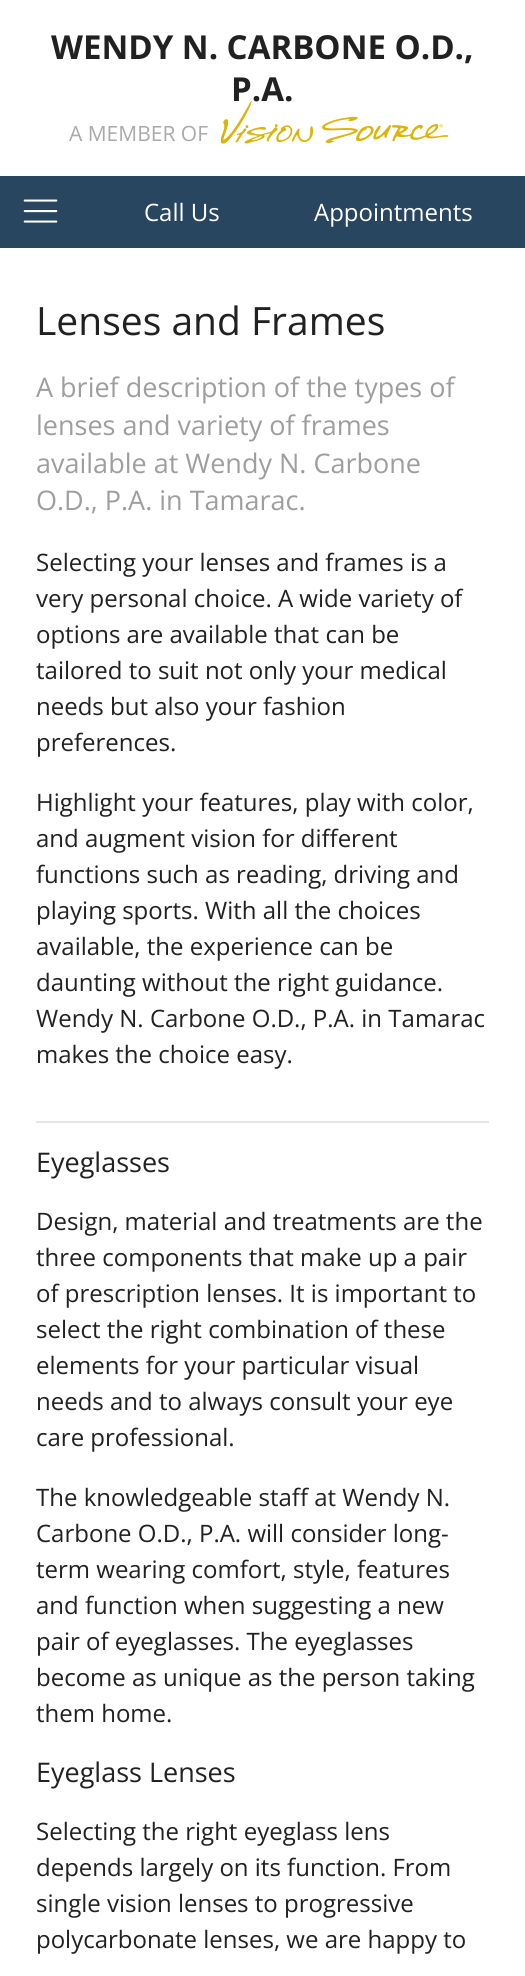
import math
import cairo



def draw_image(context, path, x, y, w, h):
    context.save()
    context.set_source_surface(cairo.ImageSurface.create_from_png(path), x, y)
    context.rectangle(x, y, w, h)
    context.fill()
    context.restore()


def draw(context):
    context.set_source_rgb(1, 1, 1)
    context.paint()
    context.set_source_rgb(41 / 255, 70 / 255, 97 / 255)
    context.rectangle(0, 176, 525, 72)
    context.fill()
    draw_image(context, "images/2.png", 23, 199, 35, 24)
    context.set_source_rgb(230 / 255, 230 / 255, 230 / 255)
    context.rectangle(36, 1121, 453, 2)
    context.fill()
    context.select_font_face("Open Sans", cairo.FontSlant.NORMAL, cairo.FontWeight.BOLD)
    context.set_font_size(33)
    context.set_source_rgb(33 / 255, 33 / 255, 33 / 255)
    context.move_to(51, 59)
    context.show_text("WENDY N. CARBONE O.D.,")
    context.move_to(231, 101)
    context.show_text("P.A.")
    context.select_font_face("Open Sans")
    context.set_font_size(21)
    context.set_source_rgb(170 / 255, 170 / 255, 170 / 255)
    context.move_to(69, 141)
    context.show_text("A MEMBER OF")
    draw_image(context, "images/1.png", 221, 101, 228, 43)
    context.set_font_size(24)
    context.set_source_rgb(1, 1, 1)
    context.move_to(144, 221)
    context.show_text("Call Us")
    context.move_to(314, 221)
    context.show_text("Appointments")
    context.set_font_size(39)
    context.set_source_rgb(33 / 255, 33 / 255, 33 / 255)
    context.move_to(36, 335)
    context.show_text("Lenses and Frames")
    context.set_font_size(27)
    context.set_source_rgb(158 / 255, 158 / 255, 158 / 255)
    context.move_to(36, 397)
    context.show_text("A brief description of the types of")
    context.move_to(36, 435)
    context.show_text("lenses and variety of frames")
    context.move_to(36, 473)
    context.show_text("available at Wendy N. Carbone")
    context.move_to(36, 510)
    context.show_text("O.D., P.A. in Tamarac.")
    context.set_font_size(24)
    context.set_source_rgb(33 / 255, 33 / 255, 33 / 255)
    context.move_to(36, 571)
    context.show_text("Selecting your lenses and frames is a")
    context.move_to(36, 607)
    context.show_text("very personal choice. A wide variety of")
    context.move_to(36, 643)
    context.show_text("options are available that can be")
    context.move_to(36, 679)
    context.show_text("tailored to suit not only your medical")
    context.move_to(36, 715)
    context.show_text("needs but also your fashion")
    context.move_to(36, 751)
    context.show_text("preferences.")
    context.move_to(36, 811)
    context.show_text("Highlight your features, play with color,")
    context.move_to(36, 847)
    context.show_text("and augment vision for different")
    context.move_to(36, 883)
    context.show_text("functions such as reading, driving and")
    context.move_to(36, 919)
    context.show_text("playing sports. With all the choices")
    context.move_to(36, 955)
    context.show_text("available, the experience can be")
    context.move_to(36, 991)
    context.show_text("daunting without the right guidance.")
    context.move_to(36, 1027)
    context.show_text("Wendy N. Carbone O.D., P.A. in Tamarac")
    context.move_to(36, 1063)
    context.show_text("makes the choice easy.")
    context.set_font_size(27)
    context.move_to(36, 1172)
    context.show_text("Eyeglasses")
    context.set_font_size(24)
    context.move_to(36, 1230)
    context.show_text("Design, material and treatments are the")
    context.move_to(36, 1266)
    context.show_text("three components that make up a pair")
    context.move_to(36, 1302)
    context.show_text("of prescription lenses. It is important to")
    context.move_to(36, 1338)
    context.show_text("select the right combination of these")
    context.move_to(36, 1374)
    context.show_text("elements for your particular visual")
    context.move_to(36, 1410)
    context.show_text("needs and to always consult your eye")
    context.move_to(36, 1446)
    context.show_text("care professional.")
    context.move_to(36, 1506)
    context.show_text("The knowledgeable staff at Wendy N.")
    context.move_to(36, 1542)
    context.show_text("Carbone O.D., P.A. will consider long-")
    context.move_to(36, 1578)
    context.show_text("term wearing comfort, style, features")
    context.move_to(36, 1614)
    context.show_text("and function when suggesting a new")
    context.move_to(36, 1650)
    context.show_text("pair of eyeglasses. The eyeglasses")
    context.move_to(36, 1686)
    context.show_text("become as unique as the person taking")
    context.move_to(36, 1722)
    context.show_text("them home.")
    context.set_font_size(27)
    context.move_to(36, 1782)
    context.show_text("Eyeglass Lenses")
    context.set_font_size(24)
    context.move_to(36, 1840)
    context.show_text("Selecting the right eyeglass lens")
    context.move_to(36, 1876)
    context.show_text("depends largely on its function. From")
    context.move_to(36, 1912)
    context.show_text("single vision lenses to progressive")
    context.move_to(36, 1948)
    context.show_text("polycarbonate lenses, we are happy to")


surface = cairo.ImageSurface(cairo.Format.RGB24, 525, 1976)
context = cairo.Context(surface)
options = cairo.FontOptions()
options.set_hint_metrics(cairo.HintMetrics.OFF)
options.set_hint_style(cairo.HintStyle.NONE)
context.set_font_options(options)
context.set_miter_limit(4)
draw(context)
surface.write_to_png("out.png")
